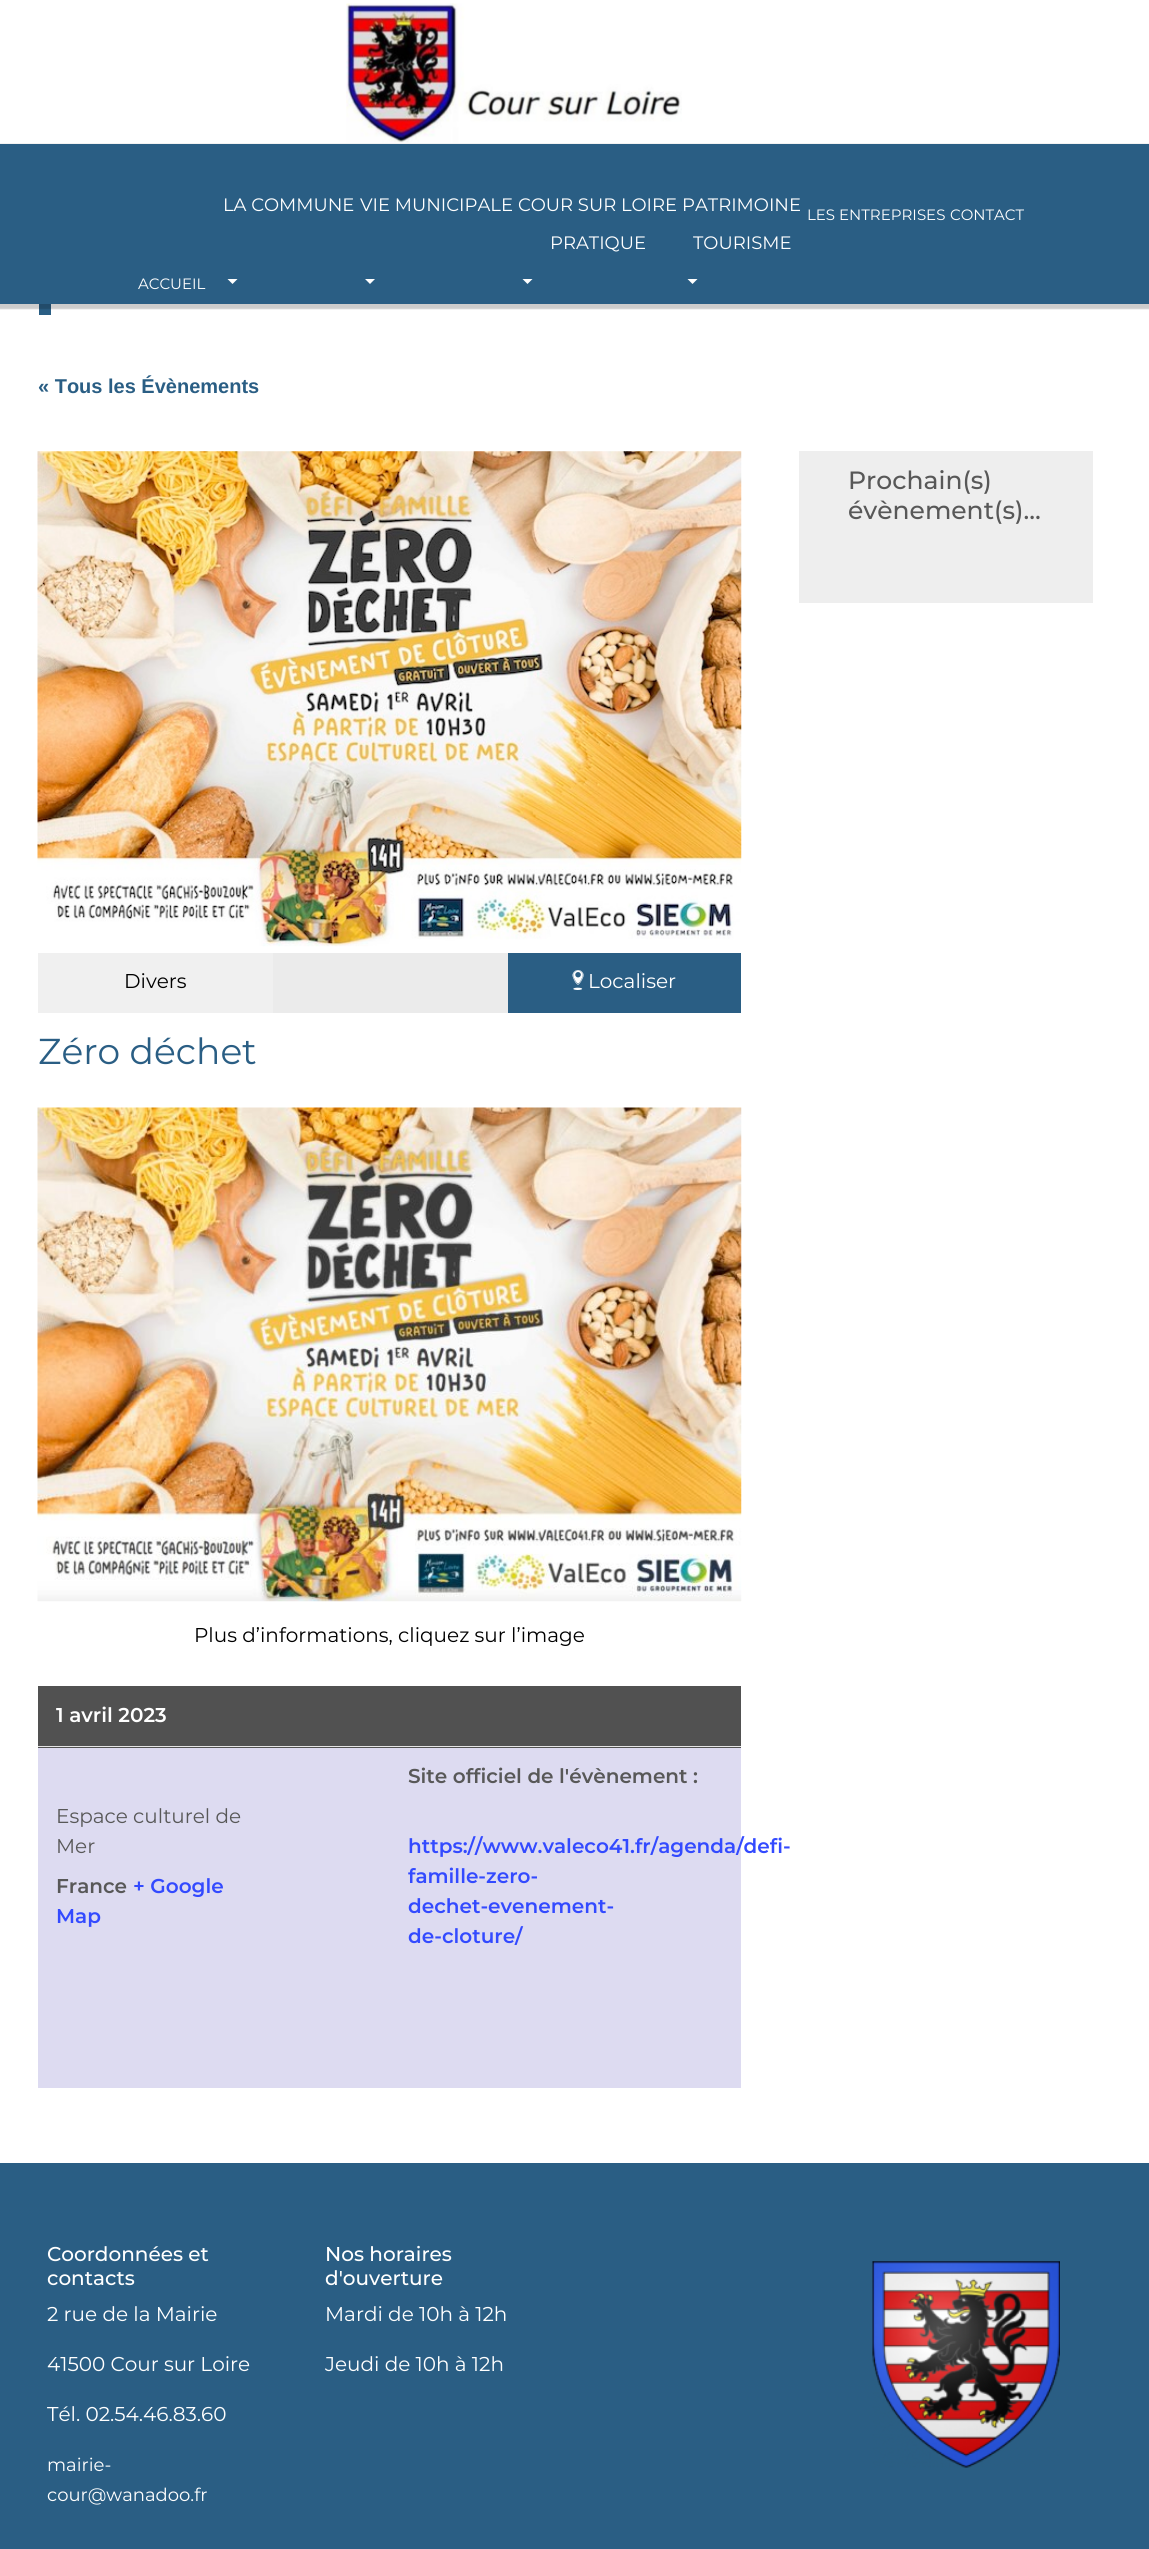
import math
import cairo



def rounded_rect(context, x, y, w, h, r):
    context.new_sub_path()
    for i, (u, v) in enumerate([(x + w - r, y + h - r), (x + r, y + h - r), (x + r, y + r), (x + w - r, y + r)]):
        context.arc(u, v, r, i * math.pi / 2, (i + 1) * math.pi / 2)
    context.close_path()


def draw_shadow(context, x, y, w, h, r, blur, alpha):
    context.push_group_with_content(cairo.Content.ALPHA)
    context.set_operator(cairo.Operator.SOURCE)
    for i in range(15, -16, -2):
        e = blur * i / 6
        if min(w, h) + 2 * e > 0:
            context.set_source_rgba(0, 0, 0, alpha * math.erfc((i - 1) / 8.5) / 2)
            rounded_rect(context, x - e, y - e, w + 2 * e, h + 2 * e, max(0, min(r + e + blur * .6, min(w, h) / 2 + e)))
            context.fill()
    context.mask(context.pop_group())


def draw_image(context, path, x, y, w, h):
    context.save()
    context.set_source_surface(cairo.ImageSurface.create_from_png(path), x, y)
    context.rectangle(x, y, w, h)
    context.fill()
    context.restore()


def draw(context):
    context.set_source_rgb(1, 1, 1)
    context.paint()
    context.set_source_rgb(42 / 255, 94 / 255, 132 / 255)
    context.rectangle(39, 304, 12, 11)
    context.fill()
    context.set_source_rgb(0, 0, 0)
    draw_shadow(context, -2, 144, 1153, 165, 0, 0.5, 0.2)
    draw_image(context, "images/1.png", 346, 3, 336, 140)
    context.set_source_rgb(42 / 255, 94 / 255, 132 / 255)
    context.rectangle(0, 144, 1149, 160)
    context.fill()
    context.set_source_rgb(1, 1, 1)
    context.new_path()
    context.move_to(227.5, 279)
    context.line_to(237.5, 279)
    context.line_to(232.5, 284)
    context.close_path()
    context.fill()
    context.new_path()
    context.move_to(365, 279)
    context.line_to(375, 279)
    context.line_to(370, 284)
    context.close_path()
    context.fill()
    context.new_path()
    context.move_to(522.5, 279)
    context.line_to(532.5, 279)
    context.line_to(527.5, 284)
    context.close_path()
    context.fill()
    context.new_path()
    context.move_to(687.5, 279)
    context.line_to(697.5, 279)
    context.line_to(692.5, 284)
    context.close_path()
    context.fill()
    context.set_source_rgb(238 / 255, 238 / 255, 238 / 255)
    context.rectangle(799, 451, 294, 152)
    context.fill()
    draw_image(context, "images/2.png", 37, 451, 705, 496)
    context.set_source_rgb(240 / 255, 240 / 255, 240 / 255)
    context.rectangle(38, 953, 235, 60)
    context.fill()
    context.set_source_rgb(235 / 255, 235 / 255, 235 / 255)
    context.rectangle(273, 953, 235, 60)
    context.fill()
    context.set_source_rgb(42 / 255, 94 / 255, 132 / 255)
    context.rectangle(508, 953, 233, 60)
    context.fill()
    draw_image(context, "images/3.png", 572, 970, 12, 20)
    draw_image(context, "images/4.png", 37, 1107, 705, 495)
    context.set_source_rgb(221 / 255, 219 / 255, 241 / 255)
    context.rectangle(38, 1748, 703, 340)
    context.fill()
    context.set_source_rgb(81 / 255, 81 / 255, 81 / 255)
    context.rectangle(38, 1686, 703, 62)
    context.fill()
    context.set_source_rgb(229 / 255, 229 / 255, 229 / 255)
    context.rectangle(38, 1746, 703, 1)
    context.fill()
    context.set_source_rgb(42 / 255, 94 / 255, 132 / 255)
    context.rectangle(0, 2163, 1149, 386)
    context.fill()
    draw_image(context, "images/5.png", 872, 2261, 188, 207)
    context.select_font_face("Montserrat")
    context.set_font_size(18)
    context.set_source_rgb(1, 1, 1)
    context.move_to(223, 211)
    context.show_text("LA COMMUNE")
    context.move_to(360, 211)
    context.show_text("VIE MUNICIPALE")
    context.move_to(518, 211)
    context.show_text("COUR SUR LOIRE")
    context.move_to(550, 249)
    context.show_text("PRATIQUE")
    context.move_to(682, 211)
    context.show_text("PATRIMOINE")
    context.move_to(693, 249)
    context.show_text("TOURISME")
    context.set_font_size(15)
    context.move_to(807, 220)
    context.show_text("LES ENTREPRISES")
    context.move_to(950, 220)
    context.show_text("CONTACT")
    context.move_to(138, 289)
    context.show_text("ACCUEIL")
    context.select_font_face("Liberation Sans", cairo.FontSlant.NORMAL, cairo.FontWeight.BOLD)
    context.set_font_size(20)
    context.set_source_rgb(42 / 255, 94 / 255, 132 / 255)
    context.move_to(38, 393)
    context.show_text("« Tous les Évènements")
    context.select_font_face("Montserrat Medium")
    context.set_font_size(25)
    context.set_source_rgb(88 / 255, 88 / 255, 88 / 255)
    context.move_to(848, 489)
    context.show_text("Prochain(s)")
    context.move_to(848, 519)
    context.show_text("évènement(s)…")
    context.select_font_face("Montserrat")
    context.set_font_size(20)
    context.set_source_rgb(0, 0, 0)
    context.move_to(124, 988)
    context.show_text("Divers")
    context.set_source_rgb(1, 1, 1)
    context.move_to(588, 988)
    context.show_text("Localiser")
    context.set_font_size(36)
    context.set_source_rgb(42 / 255, 94 / 255, 132 / 255)
    context.move_to(38, 1064)
    context.show_text("Zéro déchet")
    context.set_font_size(20)
    context.set_source_rgb(0, 0, 0)
    context.move_to(194, 1642)
    context.show_text("Plus d’informations, cliquez sur l’image")
    context.select_font_face("Montserrat SemiBold")
    context.set_source_rgb(1, 1, 1)
    context.move_to(56, 1722)
    context.show_text("1 avril 2023")
    context.select_font_face("Montserrat")
    context.set_source_rgb(88 / 255, 88 / 255, 88 / 255)
    context.move_to(56, 1823)
    context.show_text("Espace culturel de")
    context.move_to(56, 1853)
    context.show_text("Mer")
    context.select_font_face("Montserrat SemiBold")
    context.move_to(56, 1893)
    context.show_text("France")
    context.set_source_rgb(51 / 255, 74 / 255, 1)
    context.move_to(133, 1893)
    context.show_text("+ Google")
    context.move_to(56, 1923)
    context.show_text("Map")
    context.set_source_rgb(88 / 255, 88 / 255, 88 / 255)
    context.move_to(408, 1783)
    context.show_text("Site officiel de l'évènement :")
    context.set_source_rgb(51 / 255, 74 / 255, 1)
    context.move_to(408, 1853)
    context.show_text("https://www.valeco41.fr/agenda/defi-")
    context.move_to(408, 1883)
    context.show_text("famille-zero-")
    context.move_to(408, 1913)
    context.show_text("dechet-evenement-")
    context.move_to(408, 1943)
    context.show_text("de-cloture/")
    context.select_font_face("Montserrat Medium")
    context.set_source_rgb(1, 1, 1)
    context.move_to(47, 2261)
    context.show_text("Coordonnées et")
    context.move_to(47, 2285)
    context.show_text("contacts")
    context.select_font_face("Montserrat")
    context.move_to(47, 2321)
    context.show_text("2 rue de la Mairie")
    context.move_to(47, 2371)
    context.show_text("41500 Cour sur Loire")
    context.move_to(47, 2421)
    context.show_text("Tél. 02.54.46.83.60")
    context.set_font_size(18)
    context.move_to(47, 2471)
    context.show_text("mairie-")
    context.move_to(47, 2501)
    context.show_text("cour@wanadoo.fr")
    context.select_font_face("Montserrat Medium")
    context.set_font_size(20)
    context.move_to(325, 2261)
    context.show_text("Nos horaires")
    context.move_to(325, 2285)
    context.show_text("d'ouverture")
    context.select_font_face("Montserrat")
    context.move_to(325, 2321)
    context.show_text("Mardi de 10h à 12h")
    context.move_to(325, 2371)
    context.show_text("Jeudi de 10h à 12h")


surface = cairo.ImageSurface(cairo.Format.RGB24, 1149, 2549)
context = cairo.Context(surface)
options = cairo.FontOptions()
options.set_hint_metrics(cairo.HintMetrics.OFF)
options.set_hint_style(cairo.HintStyle.NONE)
context.set_font_options(options)
context.set_miter_limit(4)
draw(context)
surface.write_to_png("out.png")
